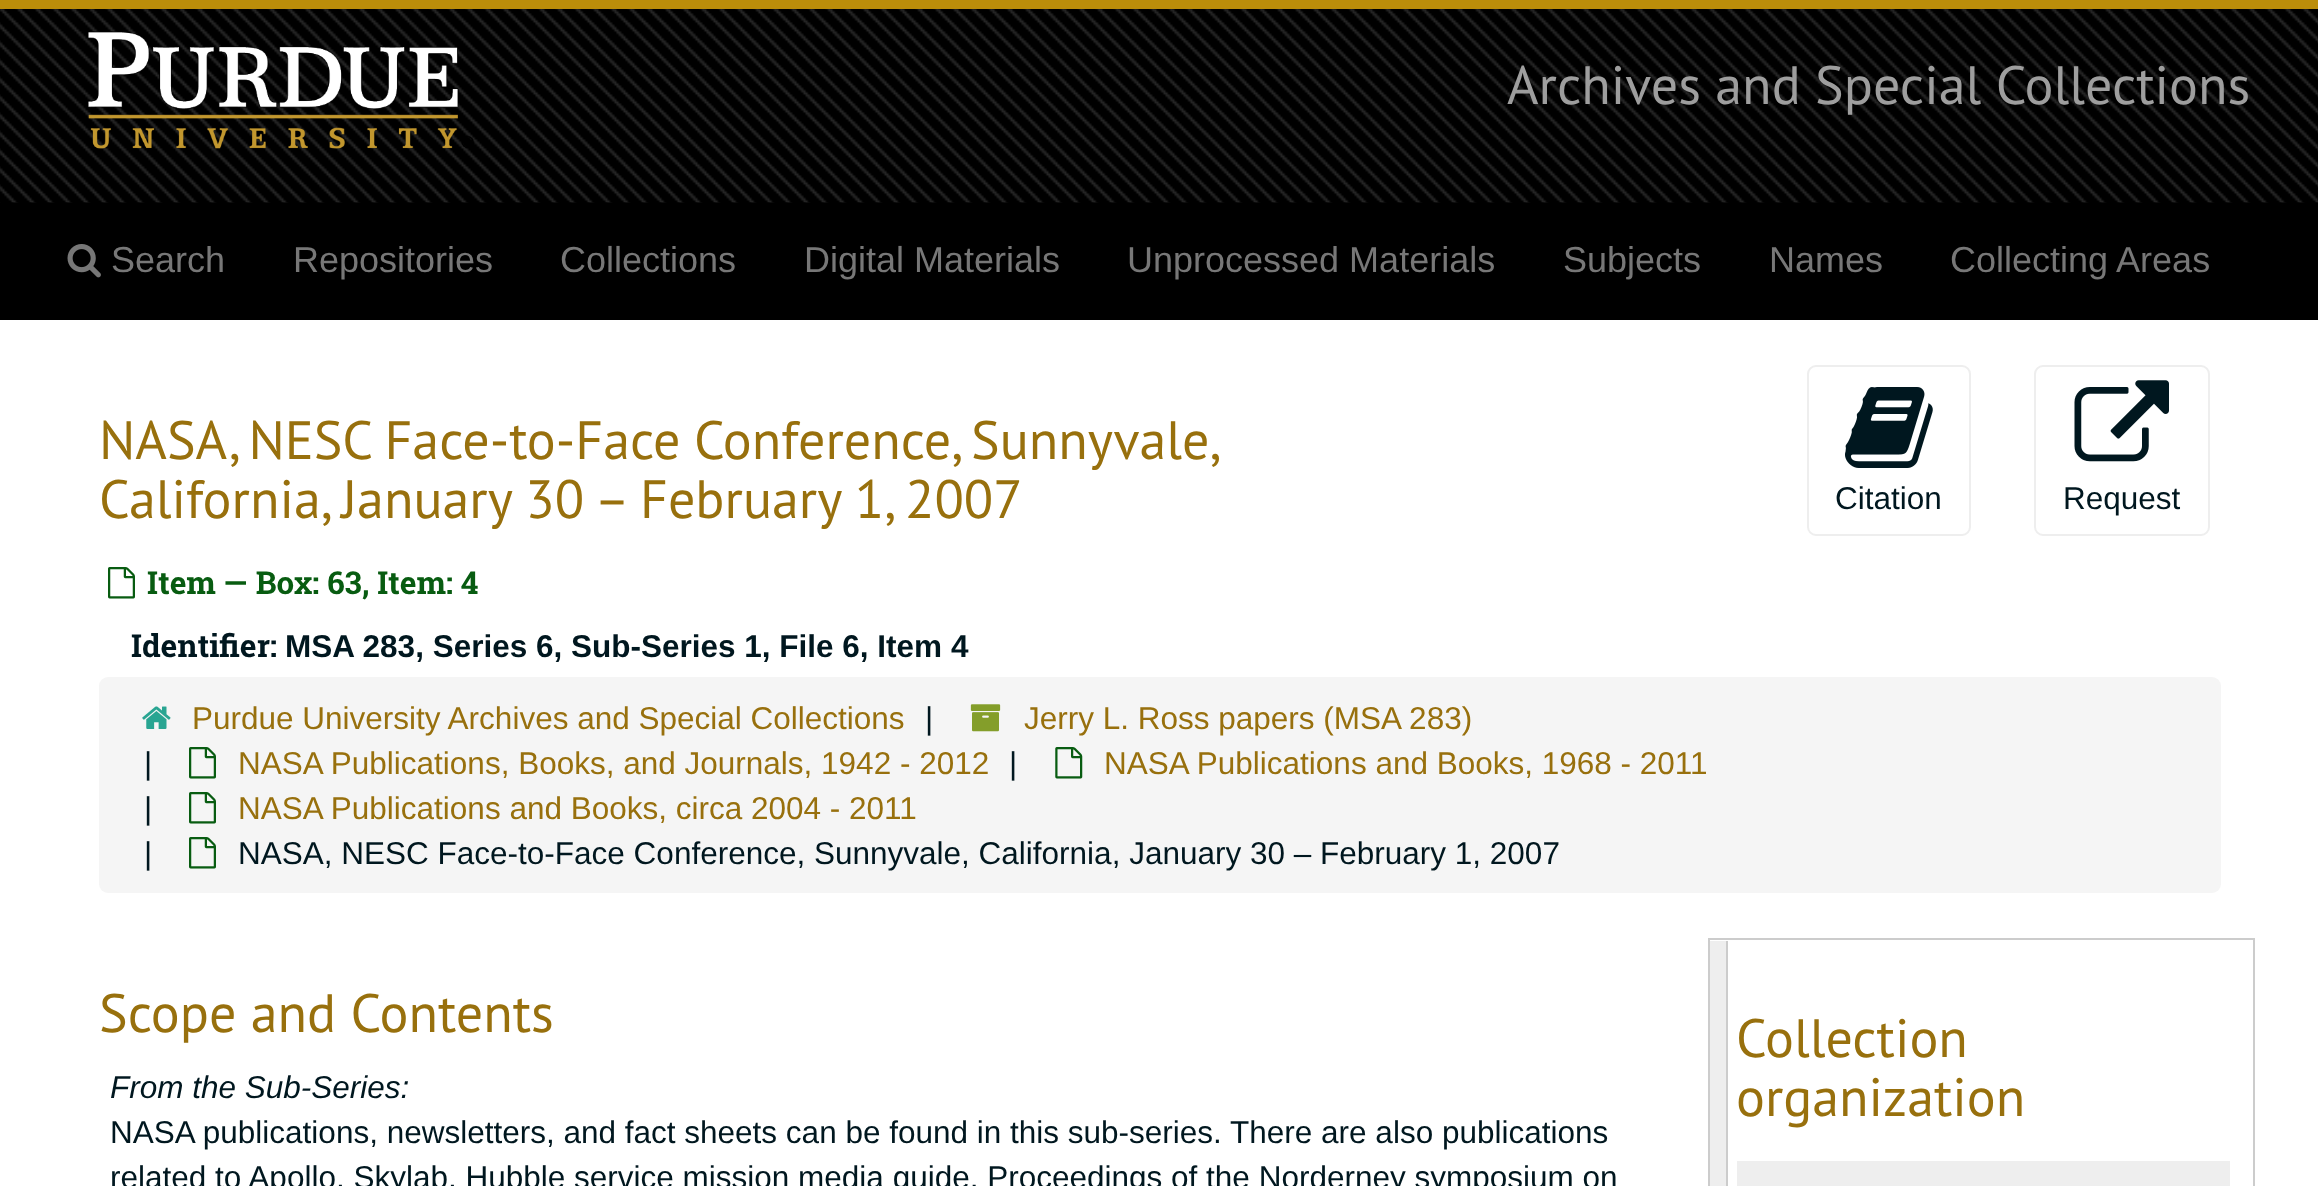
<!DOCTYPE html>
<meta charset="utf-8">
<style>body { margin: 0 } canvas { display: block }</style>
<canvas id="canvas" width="2318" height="1186"></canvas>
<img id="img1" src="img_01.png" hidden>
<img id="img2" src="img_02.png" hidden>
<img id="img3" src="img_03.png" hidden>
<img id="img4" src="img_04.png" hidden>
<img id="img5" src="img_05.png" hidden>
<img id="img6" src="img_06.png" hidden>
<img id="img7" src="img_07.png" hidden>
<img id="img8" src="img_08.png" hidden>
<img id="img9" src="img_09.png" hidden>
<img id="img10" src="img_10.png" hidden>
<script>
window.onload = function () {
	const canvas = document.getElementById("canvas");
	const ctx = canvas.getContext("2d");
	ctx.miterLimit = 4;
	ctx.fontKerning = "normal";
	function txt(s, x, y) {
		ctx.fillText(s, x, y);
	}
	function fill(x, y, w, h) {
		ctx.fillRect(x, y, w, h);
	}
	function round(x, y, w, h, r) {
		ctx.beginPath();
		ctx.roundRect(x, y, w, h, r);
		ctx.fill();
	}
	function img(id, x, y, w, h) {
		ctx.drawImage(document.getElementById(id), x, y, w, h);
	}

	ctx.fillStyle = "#FFFFFF";
	fill(0, 0, 2318, 1186);
	ctx.fillStyle = "#000000";
	fill(0, 202, 2318, 118);
	img("img1", 0, 9, 2318, 194);
	ctx.fillStyle = "#BB8D0A";
	fill(0, 0, 2318, 9);
	img("img2", 88, 31, 386, 118);
	img("img3", 67, 244, 34, 34);
	img("img4", 108, 567, 27, 32);
	ctx.beginPath();
	ctx.roundRect(1808, 366, 162, 169, 8);
	ctx.strokeStyle = "#EEEEEE";
	ctx.lineWidth = 2;
	ctx.stroke();
	img("img5", 1845, 387, 88, 81);
	ctx.beginPath();
	ctx.roundRect(2035, 366, 174, 169, 8);
	ctx.stroke();
	img("img6", 2074, 380, 95, 82);
	ctx.fillStyle = "#F5F5F5";
	round(99, 677, 2122, 216, 9);
	img("img7", 142, 706, 29, 23);
	img("img8", 970, 704, 31, 28);
	img("img9", 189, 747, 27, 32);
	img("img10", 1055, 747, 28, 32);
	img("img9", 189, 792, 27, 32);
	img("img9", 189, 837, 27, 32);
	ctx.strokeStyle = "#CCCCCC";
	ctx.strokeRect(1709, 939, 545, 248);
	ctx.fillStyle = "#EEEEEE";
	fill(1710, 941, 16, 245);
	ctx.fillStyle = "#CCCCCC";
	fill(1726, 941, 2, 245);
	ctx.fillStyle = "#EEEEEE";
	fill(1737, 1161, 493, 25);
	ctx.font = "54px PT Sans";
	ctx.fillStyle = "#9E9E9E";
	txt("Archives and Special Collections", 1507, 104);
	ctx.font = "36px Liberation Sans";
	ctx.fillStyle = "#777777";
	txt("Search", 111, 272);
	txt("Repositories", 293, 272);
	txt("Collections", 560, 272);
	txt("Digital Materials", 804, 272);
	txt("Unprocessed Materials", 1127, 272);
	txt("Subjects", 1563, 272);
	txt("Names", 1769, 272);
	txt("Collecting Areas", 1950, 272);
	ctx.wordSpacing = "-1px";
	ctx.font = "54px PT Sans";
	ctx.fillStyle = "#98700D";
	txt("NASA, NESC Face-to-Face Conference, Sunnyvale,", 99, 459);
	ctx.wordSpacing = "0px";
	txt("California, January 30 – February 1, 2007", 99, 518);
	ctx.font = "bold 31.5px Roboto Slab";
	ctx.fillStyle = "#085C11";
	txt("Item — Box: 63, Item: 4", 147, 594);
	ctx.fillStyle = "#00171F";
	txt("Identifier:", 131, 657);
	ctx.font = "bold 31.5px Liberation Sans";
	txt("MSA 283, Series 6, Sub-Series 1, File 6, Item 4", 285, 657);
	ctx.font = "31.5px Liberation Sans";
	txt("Citation", 1835, 509);
	txt("Request", 2063, 509);
	ctx.fillStyle = "#98700D";
	txt("Purdue University Archives and Special Collections", 192, 729);
	ctx.fillStyle = "#00171F";
	txt("|", 925, 729);
	ctx.fillStyle = "#98700D";
	txt("Jerry L. Ross papers (MSA 283)", 1024, 729);
	ctx.fillStyle = "#00171F";
	txt("|", 144, 774);
	ctx.fillStyle = "#98700D";
	txt("NASA Publications, Books, and Journals, 1942 - 2012", 238, 774);
	ctx.fillStyle = "#00171F";
	txt("|", 1009, 774);
	ctx.fillStyle = "#98700D";
	txt("NASA Publications and Books, 1968 - 2011", 1104, 774);
	ctx.fillStyle = "#00171F";
	txt("|", 144, 819);
	ctx.fillStyle = "#98700D";
	txt("NASA Publications and Books, circa 2004 - 2011", 238, 819);
	ctx.fillStyle = "#00171F";
	txt("|", 144, 864);
	txt("NASA, NESC Face-to-Face Conference, Sunnyvale, California, January 30 – February 1, 2007", 238, 864);
	ctx.font = "54px PT Sans";
	ctx.fillStyle = "#98700D";
	txt("Scope and Contents", 99, 1032);
	ctx.font = "italic 31.5px Liberation Sans";
	ctx.fillStyle = "#00171F";
	txt("From the Sub-Series:", 110, 1098);
	ctx.font = "31.5px Liberation Sans";
	txt("NASA publications, newsletters, and fact sheets can be found in this sub-series. There are also publications", 110, 1143);
	txt("related to Apollo, Skylab, Hubble service mission media guide, Proceedings of the Norderney symposium on", 110, 1188);
	ctx.font = "54px PT Sans";
	ctx.fillStyle = "#98700D";
	txt("Collection", 1736, 1057);
	txt("organization", 1736, 1116);
};
</script>
